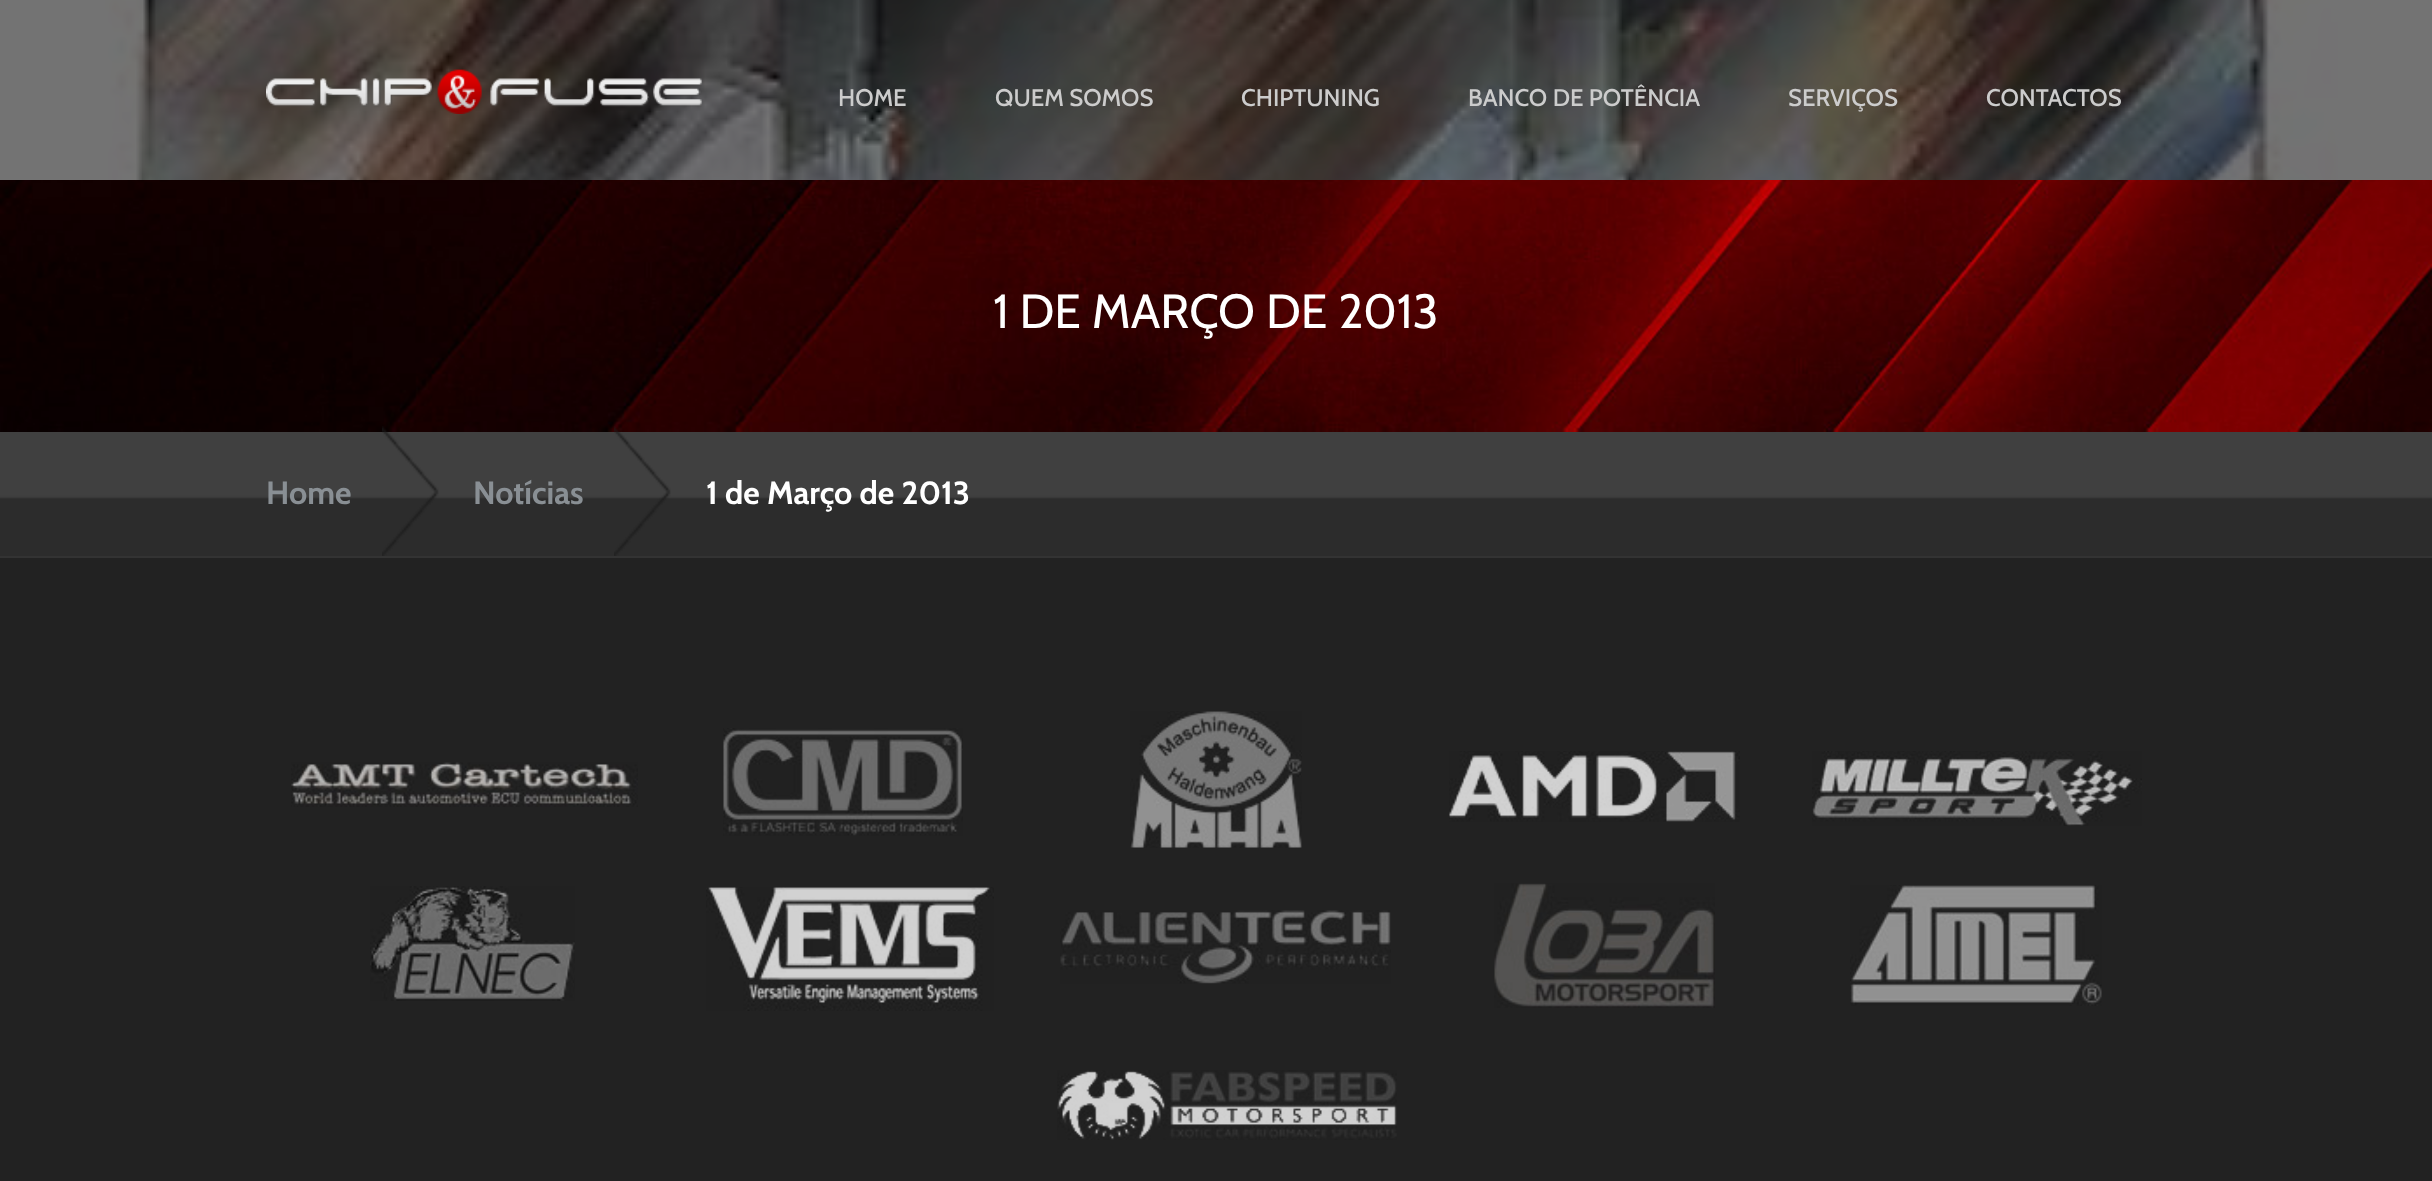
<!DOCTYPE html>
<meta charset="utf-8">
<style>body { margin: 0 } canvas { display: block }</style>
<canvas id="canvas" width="2432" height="1181"></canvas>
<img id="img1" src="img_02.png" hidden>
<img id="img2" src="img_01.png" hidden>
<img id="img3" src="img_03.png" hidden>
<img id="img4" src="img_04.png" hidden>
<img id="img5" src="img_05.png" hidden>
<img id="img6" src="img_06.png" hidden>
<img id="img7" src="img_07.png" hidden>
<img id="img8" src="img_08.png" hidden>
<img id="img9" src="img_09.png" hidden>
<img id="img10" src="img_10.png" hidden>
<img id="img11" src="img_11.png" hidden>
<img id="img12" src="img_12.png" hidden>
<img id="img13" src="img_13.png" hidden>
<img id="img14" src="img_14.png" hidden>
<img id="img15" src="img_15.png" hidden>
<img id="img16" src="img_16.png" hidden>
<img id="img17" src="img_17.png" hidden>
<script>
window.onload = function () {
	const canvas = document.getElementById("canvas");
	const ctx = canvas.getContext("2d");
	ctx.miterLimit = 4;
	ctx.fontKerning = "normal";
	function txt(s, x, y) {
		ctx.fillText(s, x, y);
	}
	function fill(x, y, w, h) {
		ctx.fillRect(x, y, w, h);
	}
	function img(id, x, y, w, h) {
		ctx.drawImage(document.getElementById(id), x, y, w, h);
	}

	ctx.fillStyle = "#FFFFFF";
	fill(0, 0, 2432, 1181);
	img("img1", 0, 0, 2432, 180);
	ctx.fillStyle = "rgba(0, 0, 0, 0.55)";
	fill(0, 0, 2432, 180);
	img("img2", 266, 69, 436, 45);
	img("img3", 0, 180, 2432, 252);
	img("img4", 0, 432, 2432, 124);
	img("img5", 382, 426, 57, 130);
	img("img6", 614, 426, 57, 130);
	ctx.fillStyle = "#222222";
	fill(0, 558, 2432, 623);
	ctx.fillStyle = "#333333";
	fill(0, 556, 2432, 2);
	img("img7", 291, 762, 347, 45);
	img("img8", 723, 728, 240, 108);
	img("img9", 1130, 711, 172, 137);
	img("img10", 1449, 751, 291, 71);
	img("img11", 1812, 751, 330, 75);
	img("img12", 370, 886, 205, 115);
	img("img13", 706, 887, 288, 124);
	img("img14", 1060, 910, 331, 74);
	img("img15", 1494, 883, 221, 125);
	img("img16", 1850, 885, 252, 121);
	img("img17", 1057, 1070, 340, 70);
	ctx.font = "500 24px Cabin";
	ctx.fillStyle = "#CCCCCC";
	txt("HOME", 838, 106);
	txt("QUEM SOMOS", 995, 106);
	txt("CHIPTUNING", 1241, 106);
	txt("BANCO DE POTÊNCIA", 1468, 106);
	txt("SERVIÇOS", 1788, 106);
	txt("CONTACTOS", 1986, 106);
	ctx.font = "48px Cabin";
	ctx.fillStyle = "#FFFFFF";
	txt("1 DE MARÇO DE 2013", 993, 328);
	ctx.font = "bold 32px Cabin";
	ctx.fillStyle = "#898F94";
	txt("Home", 266, 504);
	txt("Notícias", 473, 504);
	ctx.fillStyle = "#FFFFFF";
	txt("1 de Março de 2013", 706, 504);
};
</script>
